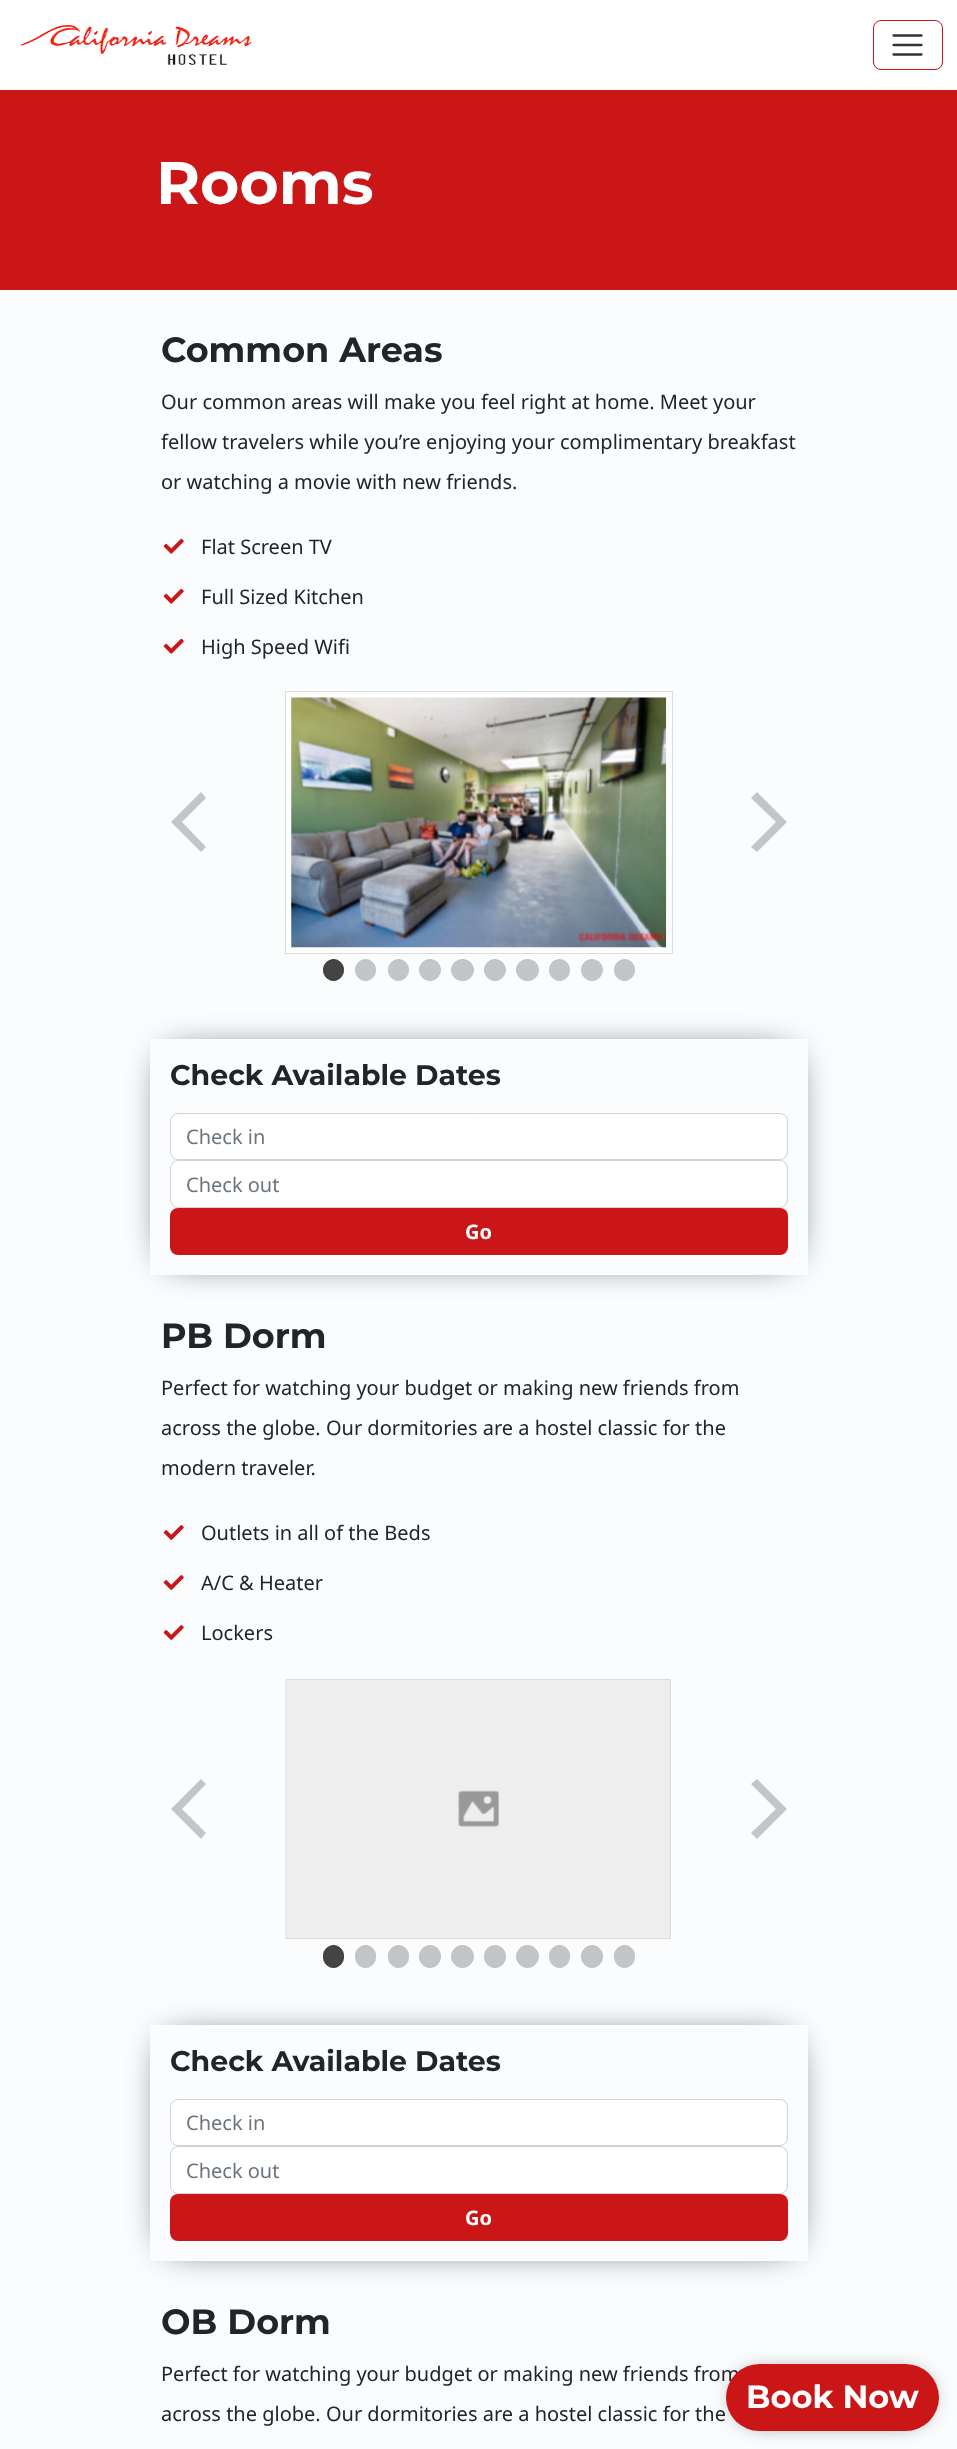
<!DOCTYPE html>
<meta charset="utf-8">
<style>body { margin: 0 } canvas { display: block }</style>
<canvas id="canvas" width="957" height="2449"></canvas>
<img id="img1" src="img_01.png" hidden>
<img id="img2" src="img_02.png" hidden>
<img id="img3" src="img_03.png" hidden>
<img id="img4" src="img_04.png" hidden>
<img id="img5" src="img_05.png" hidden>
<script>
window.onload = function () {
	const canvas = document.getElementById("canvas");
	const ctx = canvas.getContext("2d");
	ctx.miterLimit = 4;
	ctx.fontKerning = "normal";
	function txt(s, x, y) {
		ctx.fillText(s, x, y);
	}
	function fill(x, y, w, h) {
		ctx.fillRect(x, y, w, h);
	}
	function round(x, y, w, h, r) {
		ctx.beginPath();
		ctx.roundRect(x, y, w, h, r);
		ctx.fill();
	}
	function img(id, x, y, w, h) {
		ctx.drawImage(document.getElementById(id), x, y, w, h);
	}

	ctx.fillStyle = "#FAFCFE";
	fill(0, 0, 957, 2449);
	ctx.fillStyle = "#FFFFFF";
	fill(0, 0, 957, 88);
	img("img1", 20, 25, 232, 40);
	ctx.beginPath();
	ctx.roundRect(873.5, 20.5, 69, 49, 7.5);
	ctx.strokeStyle = "#CA1617";
	ctx.stroke();
	ctx.beginPath();
	ctx.moveTo(893.5, 35.5);
	ctx.lineTo(921.5, 35.5);
	ctx.moveTo(893.5, 45);
	ctx.lineTo(921.5, 45);
	ctx.moveTo(893.5, 54.5);
	ctx.lineTo(921.5, 54.5);
	ctx.strokeStyle = "#333333";
	ctx.lineWidth = 2.3;
	ctx.lineCap = "round";
	ctx.stroke();
	ctx.fillStyle = "#CA1617";
	fill(0, 90, 957, 200);
	ctx.fillStyle = "#FEFAFA";
	fill(0, 88, 957, 2);
	img("img2", 163, 538, 21, 16);
	img("img2", 163, 588, 21, 16);
	img("img2", 163, 638, 21, 16);
	ctx.fillStyle = "#C3C5C6";
	ctx.beginPath();
	ctx.moveTo(201, 852);
	ctx.lineTo(206, 847);
	ctx.lineTo(182, 822);
	ctx.lineTo(206, 798);
	ctx.lineTo(201, 792);
	ctx.lineTo(171, 822);
	ctx.closePath();
	ctx.fill();
	ctx.strokeStyle = "#DDDDDD";
	ctx.lineWidth = 1;
	ctx.strokeRect(285.5, 691.5, 387, 262);
	ctx.fillStyle = "#FFFFFF";
	fill(286, 693, 385, 260);
	img("img3", 291, 697, 376, 251);
	ctx.fillStyle = "#C3C5C6";
	ctx.beginPath();
	ctx.moveTo(757, 792);
	ctx.lineTo(751, 798);
	ctx.lineTo(776, 822);
	ctx.lineTo(751, 847);
	ctx.lineTo(757, 852);
	ctx.lineTo(787, 822);
	ctx.closePath();
	ctx.fill();
	ctx.fillStyle = "#444444";
	ctx.beginPath();
	ctx.roundRect(323.5, 959.5, 20, 21, 10);
	ctx.fill();
	ctx.strokeStyle = "#333333";
	ctx.stroke();
	ctx.fillStyle = "#C3C5C6";
	ctx.beginPath();
	ctx.roundRect(355.5, 959.5, 20, 21, 10);
	ctx.fill();
	ctx.strokeStyle = "#BEC0C1";
	ctx.stroke();
	ctx.beginPath();
	ctx.roundRect(388.5, 959.5, 20, 21, 10);
	ctx.fill();
	ctx.stroke();
	ctx.beginPath();
	ctx.arc(430, 970, 10.5, 0, Math.PI * 2);
	ctx.fill();
	ctx.stroke();
	ctx.beginPath();
	ctx.roundRect(451.5, 959.5, 22, 21, 10.5);
	ctx.fill();
	ctx.stroke();
	ctx.beginPath();
	ctx.arc(495, 970, 10.5, 0, Math.PI * 2);
	ctx.fill();
	ctx.stroke();
	ctx.beginPath();
	ctx.roundRect(516.5, 959.5, 22, 21, 10.5);
	ctx.fill();
	ctx.stroke();
	ctx.beginPath();
	ctx.roundRect(549.5, 959.5, 20, 21, 10);
	ctx.fill();
	ctx.stroke();
	ctx.beginPath();
	ctx.arc(592, 970, 10.5, 0, Math.PI * 2);
	ctx.fill();
	ctx.stroke();
	ctx.beginPath();
	ctx.roundRect(614.5, 959.5, 20, 21, 10);
	ctx.fill();
	ctx.stroke();
	ctx.save();
	ctx.beginPath();
	ctx.moveTo(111, 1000);
	ctx.lineTo(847, 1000);
	ctx.lineTo(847, 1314);
	ctx.lineTo(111, 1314);
	ctx.closePath();
	ctx.moveTo(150, 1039);
	ctx.lineTo(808, 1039);
	ctx.lineTo(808, 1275);
	ctx.lineTo(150, 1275);
	ctx.closePath();
	ctx.clip("evenodd");
	ctx.fillStyle = "#000000";
	ctx.filter = "blur(19px)";
	ctx.beginPath();
	ctx.rect(169, 1058, 620, 198);
	ctx.fill();
	ctx.filter = "none";
	ctx.restore();
	ctx.fillStyle = "#FFFFFF";
	round(171, 1114, 615, 45, 6);
	ctx.beginPath();
	ctx.roundRect(170.5, 1113.5, 617, 46, 7.5);
	ctx.strokeStyle = "#CED4DA";
	ctx.stroke();
	round(171, 1161, 615, 45, 6);
	ctx.beginPath();
	ctx.roundRect(170.5, 1160.5, 617, 47, 7.5);
	ctx.stroke();
	ctx.fillStyle = "#CA1617";
	round(170, 1208, 618, 47, 8);
	img("img4", 163, 1525, 21, 15);
	img("img4", 163, 1575, 21, 15);
	img("img4", 163, 1625, 21, 15);
	ctx.fillStyle = "#C3C5C6";
	ctx.beginPath();
	ctx.moveTo(201, 1839);
	ctx.lineTo(206, 1833);
	ctx.lineTo(182, 1809);
	ctx.lineTo(206, 1784);
	ctx.lineTo(201, 1779);
	ctx.lineTo(171, 1809);
	ctx.closePath();
	ctx.fill();
	ctx.fillStyle = "#EEEEEE";
	ctx.beginPath();
	ctx.rect(286.5, 1679.5, 384, 259);
	ctx.fill();
	ctx.strokeStyle = "#DDDDDD";
	ctx.stroke();
	img("img5", 458, 1790, 41, 37);
	ctx.fillStyle = "#C3C5C6";
	ctx.beginPath();
	ctx.moveTo(757, 1779);
	ctx.lineTo(751, 1784);
	ctx.lineTo(776, 1809);
	ctx.lineTo(751, 1833);
	ctx.lineTo(757, 1839);
	ctx.lineTo(787, 1809);
	ctx.closePath();
	ctx.fill();
	ctx.fillStyle = "#444444";
	ctx.beginPath();
	ctx.roundRect(323.5, 1945.5, 20, 22, 10);
	ctx.fill();
	ctx.strokeStyle = "#333333";
	ctx.stroke();
	ctx.fillStyle = "#C3C5C6";
	ctx.beginPath();
	ctx.roundRect(355.5, 1945.5, 20, 22, 10);
	ctx.fill();
	ctx.strokeStyle = "#BEC0C1";
	ctx.stroke();
	ctx.beginPath();
	ctx.roundRect(388.5, 1945.5, 20, 22, 10);
	ctx.fill();
	ctx.stroke();
	ctx.beginPath();
	ctx.roundRect(419.5, 1945.5, 21, 22, 10.5);
	ctx.fill();
	ctx.stroke();
	ctx.beginPath();
	ctx.arc(462.5, 1956.5, 11, 0, Math.PI * 2);
	ctx.fill();
	ctx.stroke();
	ctx.beginPath();
	ctx.roundRect(484.5, 1945.5, 21, 22, 10.5);
	ctx.fill();
	ctx.stroke();
	ctx.beginPath();
	ctx.arc(527.5, 1956.5, 11, 0, Math.PI * 2);
	ctx.fill();
	ctx.stroke();
	ctx.beginPath();
	ctx.roundRect(549.5, 1945.5, 20, 22, 10);
	ctx.fill();
	ctx.stroke();
	ctx.beginPath();
	ctx.roundRect(581.5, 1945.5, 21, 22, 10.5);
	ctx.fill();
	ctx.stroke();
	ctx.beginPath();
	ctx.roundRect(614.5, 1945.5, 20, 22, 10);
	ctx.fill();
	ctx.stroke();
	ctx.save();
	ctx.beginPath();
	ctx.moveTo(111, 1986);
	ctx.lineTo(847, 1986);
	ctx.lineTo(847, 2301);
	ctx.lineTo(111, 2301);
	ctx.closePath();
	ctx.moveTo(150, 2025);
	ctx.lineTo(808, 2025);
	ctx.lineTo(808, 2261);
	ctx.lineTo(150, 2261);
	ctx.closePath();
	ctx.clip("evenodd");
	ctx.fillStyle = "#000000";
	ctx.filter = "blur(19px)";
	ctx.beginPath();
	ctx.rect(169, 2044, 620, 199);
	ctx.fill();
	ctx.filter = "none";
	ctx.restore();
	ctx.fillStyle = "#FFFFFF";
	round(171, 2100, 615, 45, 6);
	ctx.beginPath();
	ctx.roundRect(170.5, 2099.5, 617, 46, 7.5);
	ctx.strokeStyle = "#CED4DA";
	ctx.stroke();
	round(171, 2148, 615, 45, 6);
	ctx.beginPath();
	ctx.roundRect(170.5, 2146.5, 617, 47, 7.5);
	ctx.stroke();
	ctx.fillStyle = "#CA1617";
	round(170, 2194, 618, 47, 8);
	ctx.fillStyle = "#000000";
	ctx.filter = "blur(12.5px)";
	ctx.beginPath();
	ctx.roundRect(740, 2378, 185, 40, 20);
	ctx.fill();
	ctx.filter = "none";
	ctx.font = "bold 60px Montserrat";
	ctx.fillStyle = "#FFFFFF";
	txt("Rooms", 156, 204);
	ctx.font = "bold 35px Montserrat";
	ctx.fillStyle = "#212529";
	txt("Common Areas", 161, 362);
	ctx.font = "20px Noto Sans";
	txt("Our common areas will make you feel right at home. Meet your", 161, 409);
	txt("fellow travelers while you’re enjoying your complimentary breakfast", 161, 449);
	txt("or watching a movie with new friends.", 161, 489);
	txt("Flat Screen TV", 201, 554);
	txt("Full Sized Kitchen", 201, 604);
	txt("High Speed Wifi", 201, 654);
	ctx.font = "bold 28.4px Montserrat";
	txt("Check Available Dates", 170, 1085);
	ctx.font = "20px Noto Sans";
	ctx.fillStyle = "#6C757D";
	txt("Check in", 186, 1144);
	txt("Check out", 186, 1192);
	ctx.font = "bold 20px Noto Sans";
	ctx.fillStyle = "#FFFFFF";
	txt("Go", 465, 1239);
	ctx.font = "bold 35px Montserrat";
	ctx.fillStyle = "#212529";
	txt("PB Dorm", 161, 1348);
	ctx.font = "20px Noto Sans";
	txt("Perfect for watching your budget or making new friends from", 161, 1395);
	txt("across the globe. Our dormitories are a hostel classic for the", 161, 1435);
	txt("modern traveler.", 161, 1475);
	txt("Outlets in all of the Beds", 201, 1540);
	txt("A/C & Heater", 201, 1590);
	txt("Lockers", 201, 1640);
	ctx.font = "bold 28.4px Montserrat";
	txt("Check Available Dates", 170, 2071);
	ctx.font = "20px Noto Sans";
	ctx.fillStyle = "#6C757D";
	txt("Check in", 186, 2130);
	txt("Check out", 186, 2178);
	ctx.font = "bold 20px Noto Sans";
	ctx.fillStyle = "#FFFFFF";
	txt("Go", 465, 2225);
	ctx.font = "bold 35px Montserrat";
	ctx.fillStyle = "#212529";
	txt("OB Dorm", 161, 2334);
	ctx.font = "20px Noto Sans";
	txt("Perfect for watching your budget or making new friends from", 161, 2381);
	txt("across the globe. Our dormitories are a hostel classic for the", 161, 2421);
	ctx.fillStyle = "#CA1617";
	round(726, 2364, 213, 67, 33.5);
	ctx.font = "bold 32px Montserrat";
	ctx.fillStyle = "#FFFFFF";
	txt("Book Now", 746, 2408);
};
</script>
